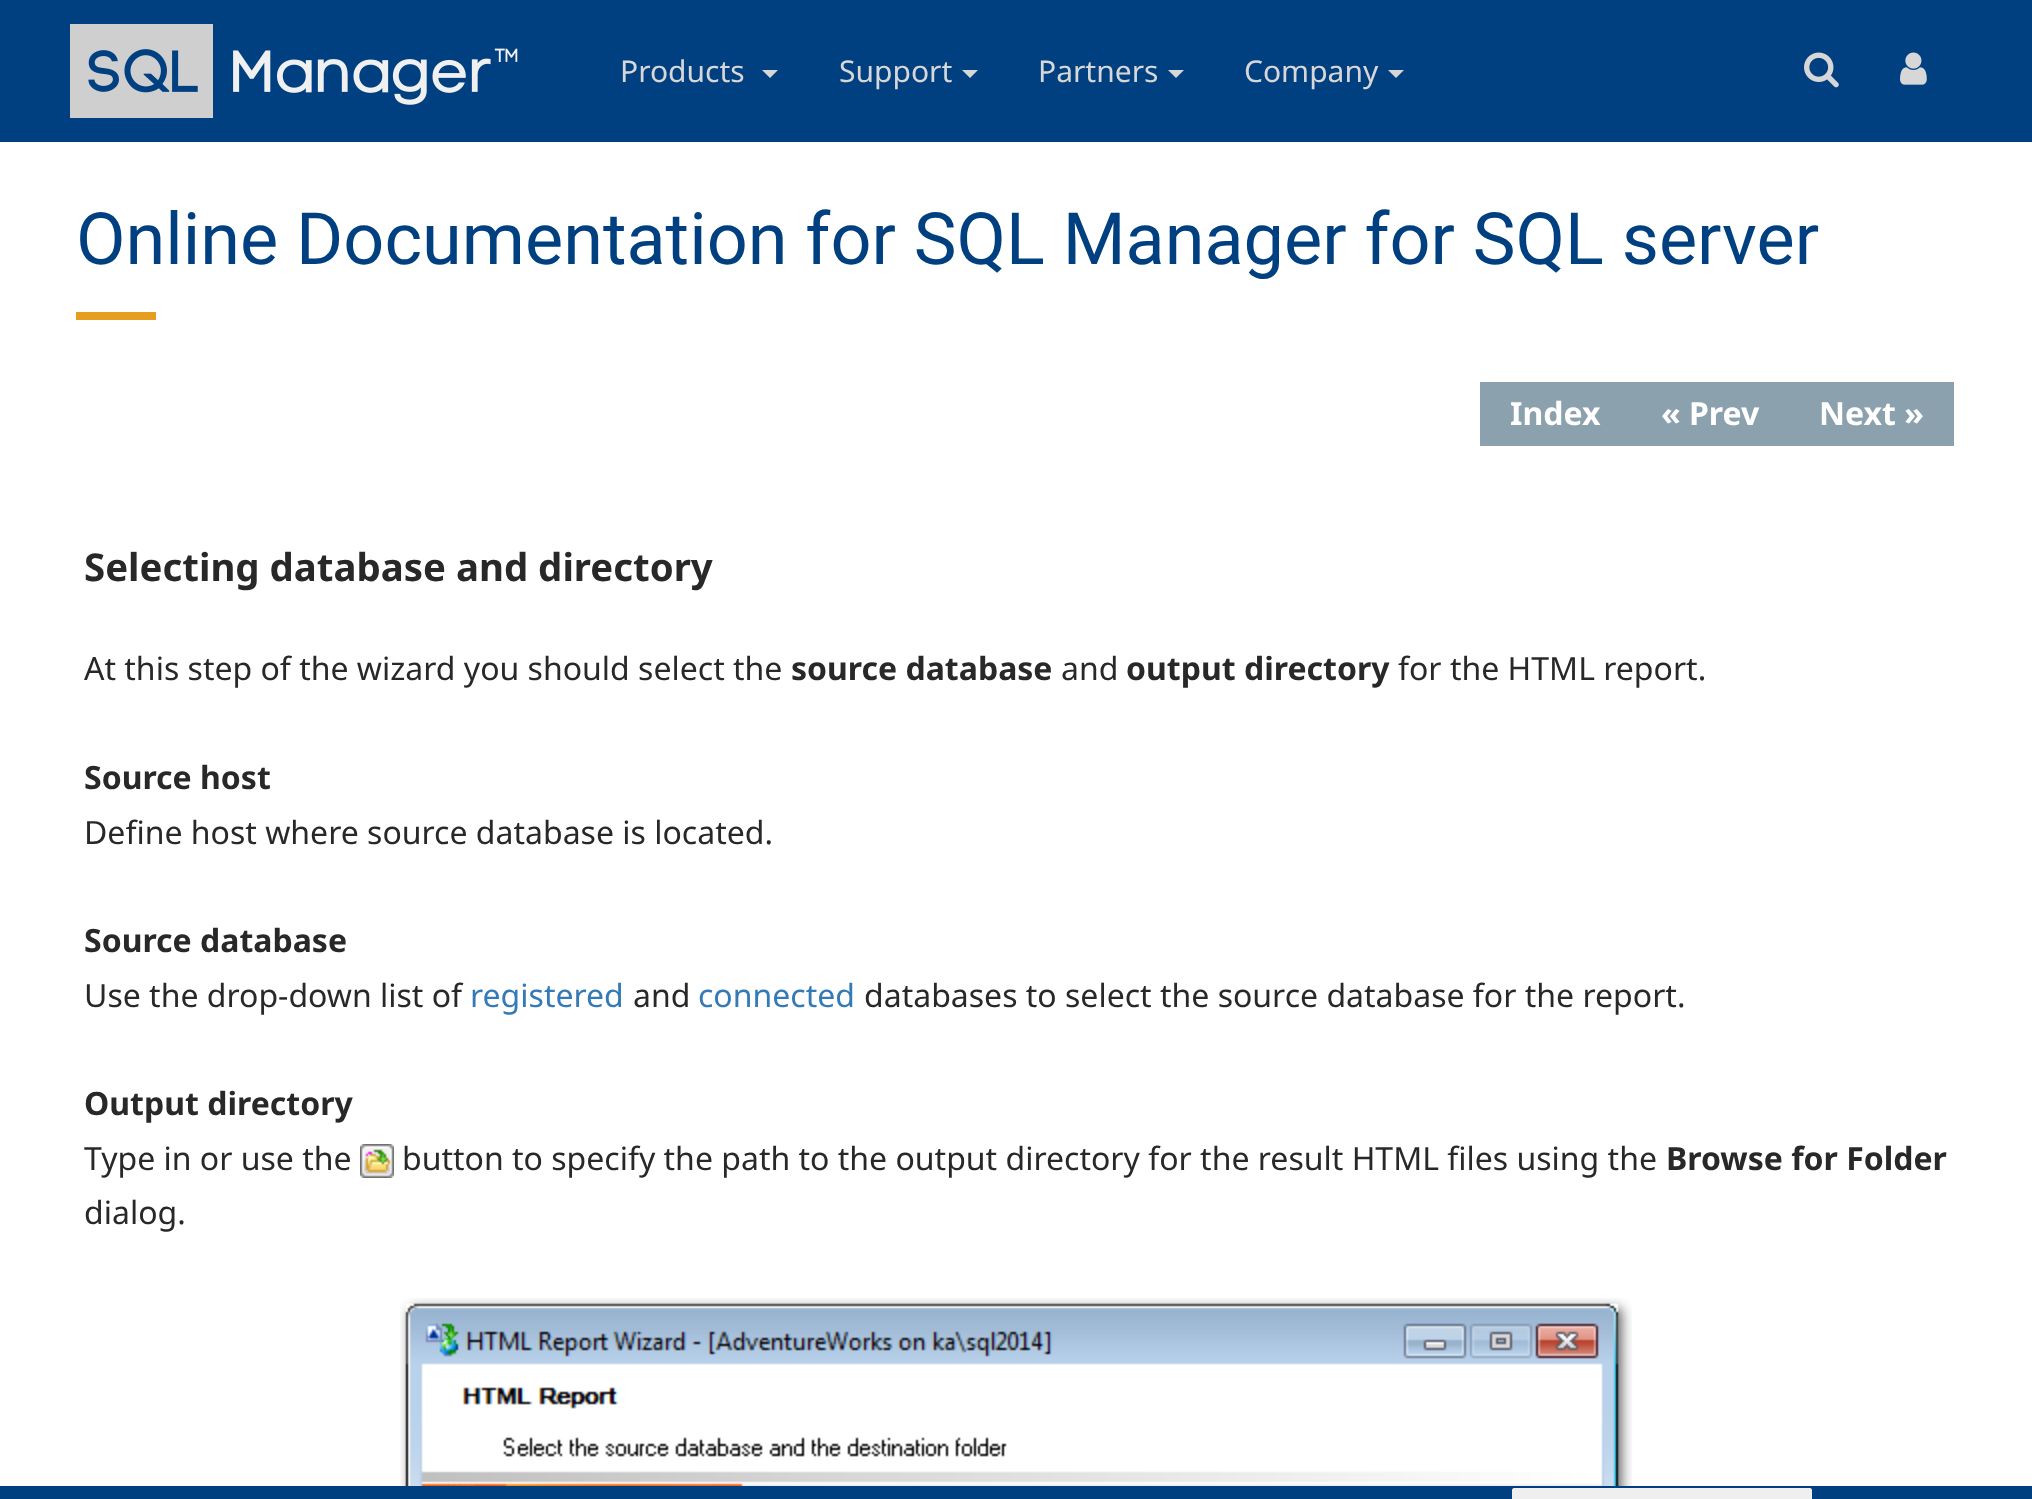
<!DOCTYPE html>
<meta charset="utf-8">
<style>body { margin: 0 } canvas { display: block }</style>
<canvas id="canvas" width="2032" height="1499"></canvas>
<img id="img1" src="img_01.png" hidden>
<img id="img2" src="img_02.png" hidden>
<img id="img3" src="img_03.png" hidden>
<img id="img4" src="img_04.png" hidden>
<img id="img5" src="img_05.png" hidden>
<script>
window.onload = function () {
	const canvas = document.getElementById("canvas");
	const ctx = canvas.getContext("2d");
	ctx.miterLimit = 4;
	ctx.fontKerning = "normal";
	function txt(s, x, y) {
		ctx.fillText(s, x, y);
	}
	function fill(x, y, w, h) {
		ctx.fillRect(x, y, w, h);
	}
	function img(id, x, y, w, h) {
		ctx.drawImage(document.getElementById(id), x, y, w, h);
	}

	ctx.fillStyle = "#FFFFFF";
	fill(0, 0, 2032, 1499);
	ctx.fillStyle = "#004080";
	fill(0, 0, 2032, 142);
	img("img1", 70, 24, 448, 94);
	ctx.fillStyle = "#D7D7D7";
	ctx.beginPath();
	ctx.moveTo(762, 70);
	ctx.lineTo(778, 70);
	ctx.lineTo(770, 78);
	ctx.closePath();
	ctx.fill();
	ctx.beginPath();
	ctx.moveTo(962, 70);
	ctx.lineTo(978, 70);
	ctx.lineTo(970, 78);
	ctx.closePath();
	ctx.fill();
	ctx.beginPath();
	ctx.moveTo(1168, 70);
	ctx.lineTo(1184, 70);
	ctx.lineTo(1176, 78);
	ctx.closePath();
	ctx.fill();
	ctx.beginPath();
	ctx.moveTo(1388, 70);
	ctx.lineTo(1404, 70);
	ctx.lineTo(1396, 78);
	ctx.closePath();
	ctx.fill();
	img("img2", 1804, 52, 35, 36);
	img("img3", 1900, 52, 27, 33);
	ctx.fillStyle = "#E69E21";
	fill(76, 312, 80, 8);
	ctx.fillStyle = "#8CA1AE";
	fill(1480, 382, 474, 64);
	img("img4", 360, 1144, 34, 34);
	img("img5", 400, 1298, 1232, 188);
	ctx.fillStyle = "#004080";
	fill(0, 1486, 2032, 13);
	ctx.fillStyle = "#EFEFEF";
	ctx.beginPath();
	ctx.moveTo(1514, 1488);
	ctx.lineTo(1810, 1488);
	ctx.bezierCurveTo(1811, 1488, 1812, 1489, 1812, 1490);
	ctx.lineTo(1812, 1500);
	ctx.lineTo(1512, 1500);
	ctx.lineTo(1512, 1490);
	ctx.bezierCurveTo(1512, 1489, 1513, 1488, 1514, 1488);
	ctx.closePath();
	ctx.fill();
	ctx.font = "30px Noto Sans";
	ctx.fillStyle = "#D7D7D7";
	txt("Products", 620, 82);
	txt("Support", 839, 82);
	txt("Partners", 1038, 82);
	txt("Company", 1244, 82);
	ctx.font = "72px Roboto";
	ctx.fillStyle = "#004080";
	txt("Online Documentation for SQL Manager for SQL server", 76, 264);
	ctx.font = "bold 32px Noto Sans";
	ctx.fillStyle = "#FFFFFF";
	txt("Index", 1510, 425);
	txt("« Prev", 1661, 425);
	txt("Next »", 1819, 425);
	ctx.font = "bold 38.4px Noto Sans";
	ctx.fillStyle = "#282828";
	txt("Selecting database and directory", 84, 581);
	ctx.font = "32px Noto Sans";
	txt("At this step of the wizard you should select the", 84, 680);
	ctx.font = "bold 32px Noto Sans";
	txt("source database", 791, 680);
	ctx.font = "32px Noto Sans";
	txt("and", 1061, 680);
	ctx.font = "bold 32px Noto Sans";
	txt("output directory", 1126, 680);
	ctx.font = "32px Noto Sans";
	txt("for the HTML report.", 1398, 680);
	ctx.font = "bold 32px Noto Sans";
	txt("Source host", 84, 789);
	ctx.font = "32px Noto Sans";
	txt("Define host where source database is located.", 84, 844);
	ctx.font = "bold 32px Noto Sans";
	txt("Source database", 84, 952);
	ctx.font = "32px Noto Sans";
	txt("Use the drop-down list of", 84, 1007);
	ctx.fillStyle = "#337AB7";
	txt("registered", 470, 1007);
	ctx.fillStyle = "#282828";
	txt("and", 633, 1007);
	ctx.fillStyle = "#337AB7";
	txt("connected", 698, 1007);
	ctx.fillStyle = "#282828";
	txt("databases to select the source database for the report.", 864, 1007);
	ctx.font = "bold 32px Noto Sans";
	txt("Output directory", 84, 1115);
	ctx.font = "32px Noto Sans";
	txt("Type in or use the", 84, 1170);
	txt("button to specify the path to the output directory for the result HTML files using the", 402, 1170);
	ctx.font = "bold 32px Noto Sans";
	txt("Browse for Folder", 1666, 1170);
	ctx.font = "32px Noto Sans";
	txt("dialog.", 84, 1224);
};
</script>
